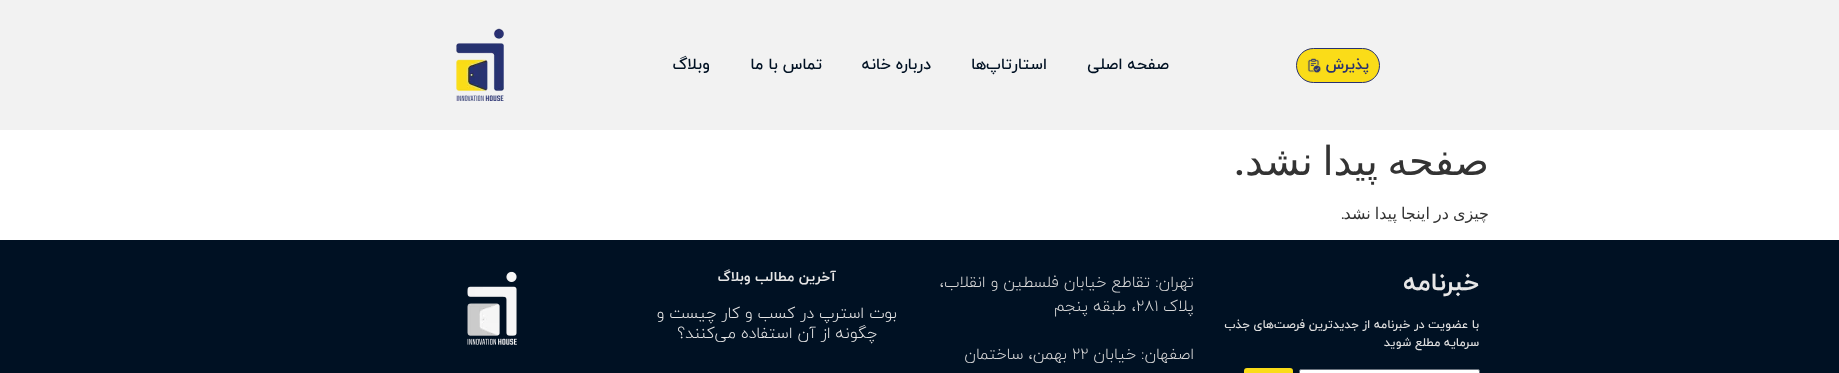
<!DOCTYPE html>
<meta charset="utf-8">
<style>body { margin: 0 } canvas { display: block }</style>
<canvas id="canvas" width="1839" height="373"></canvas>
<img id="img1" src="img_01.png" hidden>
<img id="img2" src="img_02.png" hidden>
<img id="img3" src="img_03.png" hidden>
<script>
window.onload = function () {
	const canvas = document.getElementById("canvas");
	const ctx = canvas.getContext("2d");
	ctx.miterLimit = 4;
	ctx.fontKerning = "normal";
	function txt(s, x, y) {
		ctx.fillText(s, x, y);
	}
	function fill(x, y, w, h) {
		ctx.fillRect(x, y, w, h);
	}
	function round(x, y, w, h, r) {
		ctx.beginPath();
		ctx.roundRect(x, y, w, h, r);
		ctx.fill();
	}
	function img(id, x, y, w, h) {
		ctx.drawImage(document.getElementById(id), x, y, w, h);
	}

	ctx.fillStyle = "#FFFFFF";
	fill(0, 0, 1839, 373);
	ctx.fillStyle = "#F2F2F2";
	fill(0, 0, 1839, 130);
	ctx.fillStyle = "#FADC18";
	ctx.beginPath();
	ctx.roundRect(1296.5, 48.5, 83, 34, 17);
	ctx.fill();
	ctx.strokeStyle = "#293270";
	ctx.stroke();
	img("img1", 1307, 58, 14, 15);
	img("img2", 456, 28, 48, 73);
	ctx.fillStyle = "#001123";
	fill(0, 240, 1839, 133);
	ctx.fillStyle = "#FFFFFF";
	ctx.beginPath();
	ctx.roundRect(1299.5, 369.5, 180, 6, 1.5);
	ctx.fill();
	ctx.strokeStyle = "#69727D";
	ctx.stroke();
	ctx.fillStyle = "#FADC18";
	round(1244, 368, 49, 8, 3);
	img("img3", 467, 271, 50, 74);
	ctx.direction = "rtl";
	ctx.font = "bold 15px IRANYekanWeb";
	ctx.fillStyle = "#293270";
	txt("پذیرش", 1369, 69);
	ctx.font = "500 16px IRANYekanWeb";
	ctx.fillStyle = "#001123";
	txt("صفحه اصلی", 1169, 69);
	txt("استارتاپ‌ها", 1047, 69);
	txt("درباره خانه", 931, 69);
	txt("تماس با ما", 822, 69);
	txt("وبلاگ", 710, 69);
	ctx.wordSpacing = "-3px";
	ctx.font = "40px DejaVu Sans";
	ctx.fillStyle = "#333333";
	txt("صفحه پیدا نشد", 1489, 175);
	ctx.wordSpacing = "0px";
	ctx.font = "500 40px Roboto";
	txt(".", 1245, 175);
	ctx.wordSpacing = "-1px";
	ctx.font = "16px DejaVu Sans";
	txt("چیزی در اینجا پیدا نشد", 1489, 219);
	ctx.wordSpacing = "0px";
	ctx.font = "16px Roboto";
	txt(".", 1345, 219);
	ctx.font = "bold 25px IRANYekanWeb";
	ctx.fillStyle = "#E7E7E7";
	txt("خبرنامه", 1479, 290);
	ctx.font = "500 12px IRANYekanWeb";
	ctx.fillStyle = "#DFDFDF";
	txt("با عضویت در خبرنامه از جدیدترین فرصت‌های جذب", 1479, 328);
	txt("سرمایه مطلع شوید", 1479, 346);
	ctx.font = "300 16px IRANYekanWeb";
	ctx.fillStyle = "#D8D8D8";
	txt("تهران: تقاطع خیابان فلسطین و انقلاب،", 1194, 287);
	txt("پلاک", 1194, 311);
	ctx.direction = "ltr";
	txt("۲۸۱", 1136, 311);
	ctx.direction = "rtl";
	txt("، طبقه پنجم", 1136, 311);
	txt("اصفهان: خیابان", 1194, 359);
	ctx.direction = "ltr";
	txt("۲۲", 1072, 359);
	ctx.direction = "rtl";
	txt("بهمن، ساختمان", 1067, 359);
	ctx.font = "bold 14px IRANYekanWeb";
	ctx.fillStyle = "#E7E7E7";
	txt("آخرین مطالب وبلاگ", 836, 281);
	ctx.font = "300 16px IRANYekanWeb";
	txt("بوت استرپ در کسب و کار چیست و", 897, 318);
	txt("چگونه از آن استفاده می‌کنند؟", 877, 338);
};
</script>
